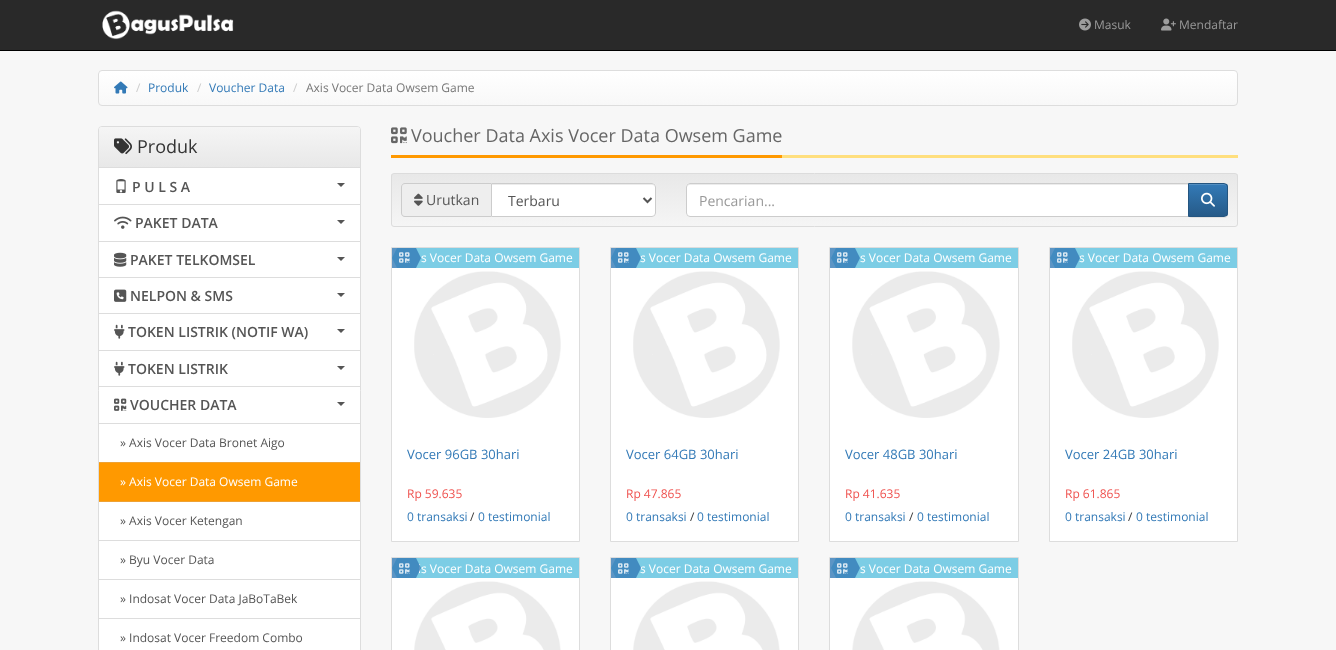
<!DOCTYPE html>
<meta charset="utf-8">
<style>body { margin: 0 } canvas { display: block }</style>
<canvas id="canvas" width="1336" height="650"></canvas>
<img id="img1" src="img_01.png" hidden>
<img id="img2" src="img_02.png" hidden>
<img id="img3" src="img_03.png" hidden>
<img id="img4" src="img_04.png" hidden>
<img id="img5" src="img_05.png" hidden>
<img id="img6" src="img_06.png" hidden>
<img id="img7" src="img_07.png" hidden>
<img id="img8" src="img_08.png" hidden>
<img id="img9" src="img_09.png" hidden>
<img id="img10" src="img_10.png" hidden>
<img id="img11" src="img_11.png" hidden>
<img id="img12" src="img_12.png" hidden>
<img id="img13" src="img_13.png" hidden>
<img id="img14" src="img_14.png" hidden>
<img id="img15" src="img_15.png" hidden>
<img id="img16" src="img_16.png" hidden>
<img id="img17" src="img_17.png" hidden>
<img id="img18" src="img_18.png" hidden>
<img id="img19" src="img_19.png" hidden>
<img id="img20" src="img_20.png" hidden>
<img id="img21" src="img_21.png" hidden>
<img id="img22" src="img_22.png" hidden>
<script>
window.onload = function () {
	const canvas = document.getElementById("canvas");
	const ctx = canvas.getContext("2d");
	ctx.miterLimit = 4;
	ctx.fontKerning = "normal";
	function txt(s, x, y) {
		ctx.fillText(s, x, y);
	}
	function fill(x, y, w, h) {
		ctx.fillRect(x, y, w, h);
	}
	function img(id, x, y, w, h) {
		ctx.drawImage(document.getElementById(id), x, y, w, h);
	}
	let gradient;

	ctx.fillStyle = "#F7F7F7";
	fill(0, 0, 1336, 650);
	ctx.fillStyle = "#292929";
	fill(0, 0, 1336, 50);
	ctx.fillStyle = "#000000";
	fill(0, 50, 1336, 1);
	img("img1", 102, 10, 132, 30);
	img("img2", 1079, 18, 12, 13);
	img("img3", 1161, 18, 15, 13);
	ctx.save();
	ctx.beginPath();
	ctx.roundRect(98, 70, 1140, 36, 4);
	ctx.clip();
	gradient = ctx.createLinearGradient(668, 71, 668, 105);
	gradient.addColorStop(0, "#FFFFFF");
	gradient.addColorStop(1, "#F8F8F8");
	ctx.fillStyle = gradient;
	fill(98, 71, 1140, 34);
	ctx.restore();
	ctx.beginPath();
	ctx.roundRect(98.5, 70.5, 1139, 35, 3.5);
	ctx.strokeStyle = "#DDDDDD";
	ctx.stroke();
	img("img4", 114, 81, 14, 13);
	ctx.fillStyle = "#FFFFFF";
	ctx.beginPath();
	ctx.roundRect(98.5, 126.5, 262, 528, 3.5);
	ctx.fill();
	ctx.stroke();
	gradient = ctx.createLinearGradient(230, 127, 230, 167);
	gradient.addColorStop(0, "#F5F5F5");
	gradient.addColorStop(1, "#E8E8E8");
	ctx.fillStyle = gradient;
	ctx.beginPath();
	ctx.roundRect(99, 127, 261, 40, [3, 3, 0, 0]);
	ctx.fill();
	ctx.fillStyle = "#DDDDDD";
	fill(99, 167, 261, 1);
	img("img5", 114, 138, 18, 17);
	fill(99, 204, 261, 1);
	img("img6", 116, 179, 10, 14);
	ctx.fillStyle = "#555555";
	ctx.beginPath();
	ctx.moveTo(337, 183);
	ctx.lineTo(345, 183);
	ctx.lineTo(341, 187);
	ctx.closePath();
	ctx.fill();
	ctx.fillStyle = "#DDDDDD";
	fill(99, 241, 261, 1);
	img("img7", 114, 216, 18, 13);
	ctx.fillStyle = "#555555";
	ctx.beginPath();
	ctx.moveTo(337, 220);
	ctx.lineTo(345, 220);
	ctx.lineTo(341, 224);
	ctx.closePath();
	ctx.fill();
	ctx.fillStyle = "#DDDDDD";
	fill(99, 277, 261, 1);
	img("img8", 114, 252, 13, 15);
	ctx.fillStyle = "#555555";
	ctx.beginPath();
	ctx.moveTo(337, 257);
	ctx.lineTo(345, 257);
	ctx.lineTo(341, 261);
	ctx.closePath();
	ctx.fill();
	ctx.fillStyle = "#DDDDDD";
	fill(99, 313, 261, 1);
	img("img9", 114, 289, 13, 13);
	ctx.fillStyle = "#555555";
	ctx.beginPath();
	ctx.moveTo(337, 293);
	ctx.lineTo(345, 293);
	ctx.lineTo(341, 297);
	ctx.closePath();
	ctx.fill();
	ctx.fillStyle = "#DDDDDD";
	fill(99, 350, 261, 1);
	img("img10", 114, 324, 11, 15);
	ctx.fillStyle = "#555555";
	ctx.beginPath();
	ctx.moveTo(337, 329);
	ctx.lineTo(345, 329);
	ctx.lineTo(341, 333);
	ctx.closePath();
	ctx.fill();
	ctx.fillStyle = "#DDDDDD";
	fill(99, 386, 261, 1);
	img("img10", 114, 361, 11, 15);
	ctx.fillStyle = "#555555";
	ctx.beginPath();
	ctx.moveTo(337, 366);
	ctx.lineTo(345, 366);
	ctx.lineTo(341, 370);
	ctx.closePath();
	ctx.fill();
	ctx.fillStyle = "#DDDDDD";
	fill(99, 423, 261, 1);
	img("img11", 114, 398, 13, 13);
	ctx.fillStyle = "#555555";
	ctx.beginPath();
	ctx.moveTo(337, 402);
	ctx.lineTo(345, 402);
	ctx.lineTo(341, 406);
	ctx.closePath();
	ctx.fill();
	ctx.fillStyle = "#FF9900";
	fill(99, 463, 261, 38);
	ctx.fillStyle = "#EEA235";
	fill(99, 462, 261, 1);
	fill(99, 501, 261, 1);
	ctx.fillStyle = "#DDDDDD";
	fill(99, 540, 261, 1);
	fill(99, 579, 261, 1);
	fill(99, 618, 261, 1);
	ctx.fillStyle = "#FFDF7E";
	fill(782, 155, 456, 3);
	ctx.fillStyle = "#FF9900";
	fill(391, 155, 391, 3);
	img("img12", 391, 127, 16, 17);
	ctx.save();
	ctx.beginPath();
	ctx.roundRect(391, 173, 847, 54, 3);
	ctx.clip();
	gradient = ctx.createLinearGradient(815, 174, 815, 226);
	gradient.addColorStop(0, "#E8E8E8");
	gradient.addColorStop(1, "#F5F5F5");
	ctx.fillStyle = gradient;
	fill(391, 174, 847, 52);
	ctx.restore();
	ctx.beginPath();
	ctx.roundRect(391.5, 173.5, 846, 53, 2.5);
	ctx.strokeStyle = "#DCDCDC";
	ctx.stroke();
	ctx.fillStyle = "#EEEEEE";
	ctx.beginPath();
	ctx.roundRect(401, 183, 90, 34, [4, 0, 0, 4]);
	ctx.fill();
	ctx.fillStyle = "#CCCCCC";
	ctx.beginPath();
	ctx.moveTo(405, 183);
	ctx.lineTo(491, 183);
	ctx.lineTo(491, 217);
	ctx.lineTo(405, 217);
	ctx.bezierCurveTo(403, 217, 401, 215, 401, 213);
	ctx.lineTo(401, 187);
	ctx.bezierCurveTo(401, 185, 403, 183, 405, 183);
	ctx.closePath();
	ctx.moveTo(405, 184);
	ctx.lineTo(491, 184);
	ctx.lineTo(491, 216);
	ctx.lineTo(405, 216);
	ctx.bezierCurveTo(403, 216, 402, 215, 402, 213);
	ctx.lineTo(402, 187);
	ctx.bezierCurveTo(402, 185, 403, 184, 405, 184);
	ctx.closePath();
	ctx.fill("evenodd");
	img("img13", 414, 193, 9, 13);
	ctx.fillStyle = "#FFFFFF";
	ctx.beginPath();
	ctx.roundRect(491, 183, 165, 34, [0, 4, 4, 0]);
	ctx.fill();
	ctx.fillStyle = "#ECECEC";
	ctx.beginPath();
	ctx.moveTo(492, 185);
	ctx.lineTo(652, 185);
	ctx.bezierCurveTo(654, 185, 655, 186, 655, 188);
	ctx.bezierCurveTo(655, 186, 654, 184, 652, 184);
	ctx.lineTo(492, 184);
	ctx.closePath();
	ctx.fill();
	ctx.beginPath();
	ctx.roundRect(491.5, 183.5, 164, 33, [0, 3.5, 3.5, 0]);
	ctx.strokeStyle = "#CCCCCC";
	ctx.stroke();
	ctx.beginPath();
	ctx.moveTo(643.5, 198);
	ctx.lineTo(647.5, 202);
	ctx.lineTo(651.5, 198);
	ctx.strokeStyle = "#555555";
	ctx.lineWidth = 2;
	ctx.stroke();
	ctx.fillStyle = "#FFFFFF";
	ctx.beginPath();
	ctx.roundRect(686, 183, 503, 34, [4, 0, 0, 4]);
	ctx.fill();
	ctx.fillStyle = "#ECECEC";
	ctx.beginPath();
	ctx.moveTo(690, 185);
	ctx.lineTo(1188, 185);
	ctx.lineTo(1188, 184);
	ctx.lineTo(690, 184);
	ctx.bezierCurveTo(688, 184, 687, 186, 687, 188);
	ctx.bezierCurveTo(687, 186, 688, 185, 690, 185);
	ctx.closePath();
	ctx.fill();
	ctx.beginPath();
	ctx.roundRect(686.5, 183.5, 502, 33, [3.5, 0, 0, 3.5]);
	ctx.strokeStyle = "#CCCCCC";
	ctx.lineWidth = 1;
	ctx.stroke();
	ctx.fillStyle = "rgba(0, 0, 0, 0.07)";
	ctx.filter = "blur(0.5px)";
	ctx.beginPath();
	ctx.roundRect(1188, 184, 40, 34, 4);
	ctx.fill();
	ctx.filter = "none";
	ctx.save();
	ctx.beginPath();
	ctx.roundRect(1188, 183, 40, 34, [0, 4, 4, 0]);
	ctx.clip();
	gradient = ctx.createLinearGradient(1208, 184, 1208, 216);
	gradient.addColorStop(0, "#337AB7");
	gradient.addColorStop(1, "#265A88");
	ctx.fillStyle = gradient;
	fill(1189, 184, 39, 32);
	ctx.restore();
	ctx.fillStyle = "#528EC1";
	ctx.beginPath();
	ctx.moveTo(1189, 185);
	ctx.lineTo(1224, 185);
	ctx.bezierCurveTo(1226, 185, 1227, 186, 1227, 188);
	ctx.lineTo(1227, 187);
	ctx.bezierCurveTo(1227, 185.5, 1225.5, 184, 1224, 184);
	ctx.lineTo(1189, 184);
	ctx.closePath();
	ctx.fill();
	ctx.beginPath();
	ctx.roundRect(1188.5, 183.5, 39, 33, [0, 3.5, 3.5, 0]);
	ctx.strokeStyle = "#245580";
	ctx.stroke();
	img("img14", 1201, 192, 14, 15);
	ctx.fillStyle = "#FFFFFF";
	ctx.beginPath();
	ctx.rect(391.5, 247.5, 188, 294);
	ctx.fill();
	ctx.strokeStyle = "#DDDDDD";
	ctx.stroke();
	ctx.fillStyle = "#7CCDE5";
	fill(397, 248, 182, 20);
	ctx.beginPath();
	ctx.moveTo(397, 248);
	ctx.lineTo(397, 268);
	ctx.lineTo(392, 258);
	ctx.closePath();
	ctx.fill();
	ctx.fillStyle = "rgba(51, 122, 183, 0.8)";
	fill(392, 248, 24, 20);
	img("img15", 399, 252, 11, 11);
	ctx.beginPath();
	ctx.moveTo(416, 268);
	ctx.lineTo(416, 248);
	ctx.lineTo(421, 258);
	ctx.closePath();
	ctx.fill();
	img("img16", 414, 271, 147, 147);
	ctx.fillStyle = "#FFFFFF";
	ctx.beginPath();
	ctx.rect(610.5, 247.5, 188, 294);
	ctx.fill();
	ctx.stroke();
	ctx.fillStyle = "#7CCDE5";
	fill(616, 248, 182, 20);
	ctx.beginPath();
	ctx.moveTo(616, 248);
	ctx.lineTo(616, 268);
	ctx.lineTo(611, 258);
	ctx.closePath();
	ctx.fill();
	ctx.fillStyle = "rgba(51, 122, 183, 0.8)";
	fill(611, 248, 25, 20);
	img("img17", 618, 252, 11, 11);
	img("img16", 633, 271, 147, 147);
	ctx.fillStyle = "#FFFFFF";
	ctx.beginPath();
	ctx.rect(829.5, 247.5, 189, 294);
	ctx.fill();
	ctx.stroke();
	ctx.fillStyle = "#7CCDE5";
	fill(836, 248, 182, 20);
	ctx.beginPath();
	ctx.moveTo(836, 248);
	ctx.lineTo(836, 268);
	ctx.lineTo(831, 258);
	ctx.closePath();
	ctx.fill();
	ctx.fillStyle = "rgba(51, 122, 183, 0.8)";
	fill(830, 248, 25, 20);
	img("img18", 837, 252, 11, 11);
	ctx.beginPath();
	ctx.moveTo(855, 268);
	ctx.lineTo(855, 248);
	ctx.lineTo(860, 258);
	ctx.closePath();
	ctx.fill();
	img("img19", 852, 271, 148, 147);
	ctx.fillStyle = "#FFFFFF";
	ctx.beginPath();
	ctx.rect(1049.5, 247.5, 188, 294);
	ctx.fill();
	ctx.stroke();
	ctx.fillStyle = "#7CCDE5";
	fill(1055, 248, 182, 20);
	ctx.beginPath();
	ctx.moveTo(1055, 248);
	ctx.lineTo(1055, 268);
	ctx.lineTo(1050, 258);
	ctx.closePath();
	ctx.fill();
	ctx.fillStyle = "rgba(51, 122, 183, 0.8)";
	fill(1050, 248, 25, 20);
	img("img20", 1057, 252, 11, 11);
	img("img16", 1072, 271, 147, 147);
	ctx.fillStyle = "#FFFFFF";
	ctx.beginPath();
	ctx.rect(391.5, 557.5, 188, 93);
	ctx.fill();
	ctx.stroke();
	ctx.fillStyle = "#7CCDE5";
	fill(397, 558, 182, 20);
	ctx.beginPath();
	ctx.moveTo(397, 558);
	ctx.lineTo(397, 578);
	ctx.lineTo(392, 568);
	ctx.closePath();
	ctx.fill();
	ctx.fillStyle = "rgba(51, 122, 183, 0.8)";
	fill(392, 558, 24, 20);
	img("img15", 399, 563, 11, 11);
	img("img21", 414, 581, 147, 69);
	ctx.fillStyle = "#FFFFFF";
	ctx.beginPath();
	ctx.rect(610.5, 557.5, 188, 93);
	ctx.fill();
	ctx.stroke();
	ctx.fillStyle = "#7CCDE5";
	fill(616, 558, 182, 20);
	ctx.beginPath();
	ctx.moveTo(616, 558);
	ctx.lineTo(616, 578);
	ctx.lineTo(611, 568);
	ctx.closePath();
	ctx.fill();
	ctx.fillStyle = "rgba(51, 122, 183, 0.8)";
	fill(611, 558, 25, 20);
	img("img17", 618, 563, 11, 11);
	img("img21", 633, 581, 147, 69);
	ctx.fillStyle = "#FFFFFF";
	ctx.beginPath();
	ctx.rect(829.5, 557.5, 189, 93);
	ctx.fill();
	ctx.stroke();
	ctx.fillStyle = "#7CCDE5";
	fill(836, 558, 182, 20);
	ctx.beginPath();
	ctx.moveTo(836, 558);
	ctx.lineTo(836, 578);
	ctx.lineTo(831, 568);
	ctx.closePath();
	ctx.fill();
	ctx.fillStyle = "rgba(51, 122, 183, 0.8)";
	fill(830, 558, 25, 20);
	img("img18", 837, 563, 11, 11);
	ctx.beginPath();
	ctx.moveTo(855, 578);
	ctx.lineTo(855, 558);
	ctx.lineTo(860, 568);
	ctx.closePath();
	ctx.fill();
	img("img22", 852, 581, 148, 69);
	ctx.font = "12px Open Sans";
	ctx.fillStyle = "#999999";
	txt("Masuk", 1094, 29);
	txt("Mendaftar", 1179, 29);
	ctx.fillStyle = "#CCCCCC";
	txt("/", 136, 92);
	ctx.fillStyle = "#337AB7";
	txt("Produk", 148, 92);
	ctx.fillStyle = "#CCCCCC";
	txt("/", 197, 92);
	ctx.fillStyle = "#337AB7";
	txt("Voucher Data", 209, 92);
	ctx.fillStyle = "#CCCCCC";
	txt("/", 293, 92);
	ctx.fillStyle = "#777777";
	txt("Axis Vocer Data Owsem Game", 306, 92);
	ctx.font = "18px Open Sans";
	ctx.fillStyle = "#333333";
	txt("Produk", 137, 153);
	ctx.font = "600 14px Open Sans";
	ctx.fillStyle = "#555555";
	txt("P U L S A", 132, 192);
	txt("PAKET DATA", 135, 228);
	txt("PAKET TELKOMSEL", 130, 265);
	txt("NELPON & SMS", 130, 301);
	txt("TOKEN LISTRIK (NOTIF WA)", 128, 337);
	txt("TOKEN LISTRIK", 128, 374);
	txt("VOUCHER DATA", 130, 410);
	ctx.font = "12px Open Sans";
	txt("» Axis Vocer Data Bronet Aigo", 120, 447);
	ctx.fillStyle = "#FFFFFF";
	txt("» Axis Vocer Data Owsem Game", 120, 486);
	ctx.fillStyle = "#555555";
	txt("» Axis Vocer Ketengan", 120, 525);
	txt("» Byu Vocer Data", 120, 564);
	txt("» Indosat Vocer Data JaBoTaBek", 120, 603);
	txt("» Indosat Vocer Freedom Combo", 120, 642);
	ctx.font = "18px Open Sans";
	ctx.fillStyle = "#666666";
	txt("Voucher Data Axis Vocer Data Owsem Game", 411, 142);
	ctx.font = "14px Open Sans";
	ctx.fillStyle = "#555555";
	txt("Urutkan", 426, 205);
	txt("Terbaru", 508, 206);
	ctx.fillStyle = "#999999";
	txt("Pencarian...", 699, 206);
	ctx.font = "12px Open Sans";
	ctx.fillStyle = "#FFFFFF";
	txt("s Vocer Data Owsem Game", 421, 262);
	ctx.font = "13px Open Sans";
	ctx.fillStyle = "#337AB7";
	txt("Vocer 96GB 30hari", 407, 459);
	ctx.font = "12px Open Sans";
	ctx.fillStyle = "#EF5350";
	txt("Rp 59.635", 407, 498);
	ctx.fillStyle = "#337AB7";
	txt("0 transaksi", 407, 521);
	ctx.fillStyle = "#333333";
	txt("/", 470, 521);
	ctx.fillStyle = "#337AB7";
	txt("0 testimonial", 478, 521);
	ctx.fillStyle = "#FFFFFF";
	txt("s Vocer Data Owsem Game", 640, 262);
	ctx.fillStyle = "rgba(51, 122, 183, 0.8)";
	ctx.beginPath();
	ctx.moveTo(636, 268);
	ctx.lineTo(636, 248);
	ctx.lineTo(641, 258);
	ctx.closePath();
	ctx.fill();
	ctx.font = "13px Open Sans";
	ctx.fillStyle = "#337AB7";
	txt("Vocer 64GB 30hari", 626, 459);
	ctx.font = "12px Open Sans";
	ctx.fillStyle = "#EF5350";
	txt("Rp 47.865", 626, 498);
	ctx.fillStyle = "#337AB7";
	txt("0 transaksi", 626, 521);
	ctx.fillStyle = "#333333";
	txt("/", 690, 521);
	ctx.fillStyle = "#337AB7";
	txt("0 testimonial", 697, 521);
	ctx.fillStyle = "#FFFFFF";
	txt("s Vocer Data Owsem Game", 860, 262);
	ctx.font = "13px Open Sans";
	ctx.fillStyle = "#337AB7";
	txt("Vocer 48GB 30hari", 845, 459);
	ctx.font = "12px Open Sans";
	ctx.fillStyle = "#EF5350";
	txt("Rp 41.635", 845, 498);
	ctx.fillStyle = "#337AB7";
	txt("0 transaksi", 845, 521);
	ctx.fillStyle = "#333333";
	txt("/", 909, 521);
	ctx.fillStyle = "#337AB7";
	txt("0 testimonial", 917, 521);
	ctx.fillStyle = "#FFFFFF";
	txt("s Vocer Data Owsem Game", 1079, 262);
	ctx.fillStyle = "rgba(51, 122, 183, 0.8)";
	ctx.beginPath();
	ctx.moveTo(1075, 268);
	ctx.lineTo(1075, 248);
	ctx.lineTo(1080, 258);
	ctx.closePath();
	ctx.fill();
	ctx.font = "13px Open Sans";
	ctx.fillStyle = "#337AB7";
	txt("Vocer 24GB 30hari", 1065, 459);
	ctx.font = "12px Open Sans";
	ctx.fillStyle = "#EF5350";
	txt("Rp 61.865", 1065, 498);
	ctx.fillStyle = "#337AB7";
	txt("0 transaksi", 1065, 521);
	ctx.fillStyle = "#333333";
	txt("/", 1128, 521);
	ctx.fillStyle = "#337AB7";
	txt("0 testimonial", 1136, 521);
	ctx.fillStyle = "#FFFFFF";
	txt("is Vocer Data Owsem Game", 418, 573);
	ctx.fillStyle = "rgba(51, 122, 183, 0.8)";
	ctx.beginPath();
	ctx.moveTo(416, 578);
	ctx.lineTo(416, 558);
	ctx.lineTo(421, 568);
	ctx.closePath();
	ctx.fill();
	ctx.fillStyle = "#FFFFFF";
	txt("s Vocer Data Owsem Game", 640, 573);
	ctx.fillStyle = "rgba(51, 122, 183, 0.8)";
	ctx.beginPath();
	ctx.moveTo(636, 578);
	ctx.lineTo(636, 558);
	ctx.lineTo(641, 568);
	ctx.closePath();
	ctx.fill();
	ctx.fillStyle = "#FFFFFF";
	txt("s Vocer Data Owsem Game", 860, 573);
};
</script>
